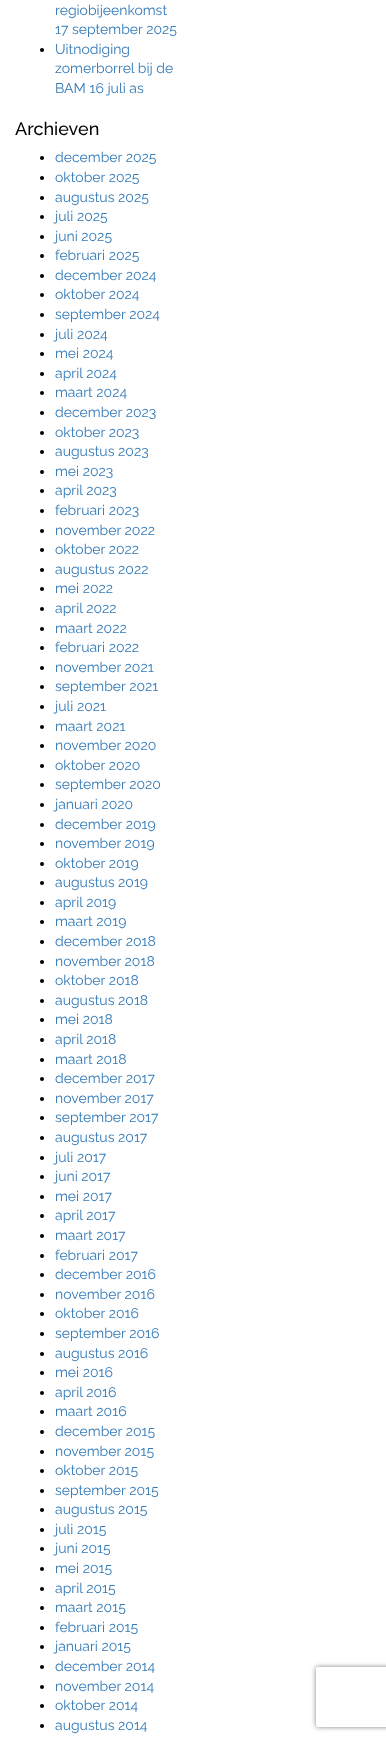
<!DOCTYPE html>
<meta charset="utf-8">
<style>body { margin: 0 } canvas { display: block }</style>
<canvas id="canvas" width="386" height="1741"></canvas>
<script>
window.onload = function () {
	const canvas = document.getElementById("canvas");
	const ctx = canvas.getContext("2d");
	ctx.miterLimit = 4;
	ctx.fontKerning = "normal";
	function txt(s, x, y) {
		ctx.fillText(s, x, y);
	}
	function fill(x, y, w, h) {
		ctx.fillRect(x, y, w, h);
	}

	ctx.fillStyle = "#FFFFFF";
	fill(0, 0, 386, 1741);
	ctx.fillStyle = "#000000";
	ctx.beginPath();
	ctx.arc(42, 50, 2, 0, Math.PI * 2);
	ctx.fill();
	ctx.beginPath();
	ctx.arc(42, 158, 2, 0, Math.PI * 2);
	ctx.fill();
	ctx.beginPath();
	ctx.arc(42, 178, 2, 0, Math.PI * 2);
	ctx.fill();
	ctx.beginPath();
	ctx.arc(42, 198, 2, 0, Math.PI * 2);
	ctx.fill();
	ctx.beginPath();
	ctx.arc(42, 217, 2, 0, Math.PI * 2);
	ctx.fill();
	ctx.beginPath();
	ctx.arc(42, 237, 2, 0, Math.PI * 2);
	ctx.fill();
	ctx.beginPath();
	ctx.arc(42, 256, 2, 0, Math.PI * 2);
	ctx.fill();
	ctx.beginPath();
	ctx.arc(42, 276, 2, 0, Math.PI * 2);
	ctx.fill();
	ctx.beginPath();
	ctx.arc(42, 295, 2, 0, Math.PI * 2);
	ctx.fill();
	ctx.beginPath();
	ctx.arc(42, 315, 2, 0, Math.PI * 2);
	ctx.fill();
	ctx.beginPath();
	ctx.arc(42, 335, 2, 0, Math.PI * 2);
	ctx.fill();
	ctx.beginPath();
	ctx.arc(42, 354, 2, 0, Math.PI * 2);
	ctx.fill();
	ctx.beginPath();
	ctx.arc(42, 374, 2, 0, Math.PI * 2);
	ctx.fill();
	ctx.beginPath();
	ctx.arc(42, 393, 2, 0, Math.PI * 2);
	ctx.fill();
	ctx.beginPath();
	ctx.arc(42, 413, 2, 0, Math.PI * 2);
	ctx.fill();
	ctx.beginPath();
	ctx.arc(42, 433, 2, 0, Math.PI * 2);
	ctx.fill();
	ctx.beginPath();
	ctx.arc(42, 452, 2, 0, Math.PI * 2);
	ctx.fill();
	ctx.beginPath();
	ctx.arc(42, 472, 2, 0, Math.PI * 2);
	ctx.fill();
	ctx.beginPath();
	ctx.arc(42, 491, 2, 0, Math.PI * 2);
	ctx.fill();
	ctx.beginPath();
	ctx.arc(42, 511, 2, 0, Math.PI * 2);
	ctx.fill();
	ctx.beginPath();
	ctx.arc(42, 531, 2, 0, Math.PI * 2);
	ctx.fill();
	ctx.beginPath();
	ctx.arc(42, 550, 2, 0, Math.PI * 2);
	ctx.fill();
	ctx.beginPath();
	ctx.arc(42, 570, 2, 0, Math.PI * 2);
	ctx.fill();
	ctx.beginPath();
	ctx.arc(42, 589, 2, 0, Math.PI * 2);
	ctx.fill();
	ctx.beginPath();
	ctx.arc(42, 609, 2, 0, Math.PI * 2);
	ctx.fill();
	ctx.beginPath();
	ctx.arc(42, 629, 2, 0, Math.PI * 2);
	ctx.fill();
	ctx.beginPath();
	ctx.arc(42, 648, 2, 0, Math.PI * 2);
	ctx.fill();
	ctx.beginPath();
	ctx.arc(42, 668, 2, 0, Math.PI * 2);
	ctx.fill();
	ctx.beginPath();
	ctx.arc(42, 687, 2, 0, Math.PI * 2);
	ctx.fill();
	ctx.beginPath();
	ctx.arc(42, 707, 2, 0, Math.PI * 2);
	ctx.fill();
	ctx.beginPath();
	ctx.arc(42, 727, 2, 0, Math.PI * 2);
	ctx.fill();
	ctx.beginPath();
	ctx.arc(42, 746, 2, 0, Math.PI * 2);
	ctx.fill();
	ctx.beginPath();
	ctx.arc(42, 766, 2, 0, Math.PI * 2);
	ctx.fill();
	ctx.beginPath();
	ctx.arc(42, 785, 2, 0, Math.PI * 2);
	ctx.fill();
	ctx.beginPath();
	ctx.arc(42, 805, 2, 0, Math.PI * 2);
	ctx.fill();
	ctx.beginPath();
	ctx.arc(42, 825, 2, 0, Math.PI * 2);
	ctx.fill();
	ctx.beginPath();
	ctx.arc(42, 844, 2, 0, Math.PI * 2);
	ctx.fill();
	ctx.beginPath();
	ctx.arc(42, 864, 2, 0, Math.PI * 2);
	ctx.fill();
	ctx.beginPath();
	ctx.arc(42, 883, 2, 0, Math.PI * 2);
	ctx.fill();
	ctx.beginPath();
	ctx.arc(42, 903, 2, 0, Math.PI * 2);
	ctx.fill();
	ctx.beginPath();
	ctx.arc(42, 922, 2, 0, Math.PI * 2);
	ctx.fill();
	ctx.beginPath();
	ctx.arc(42, 942, 2, 0, Math.PI * 2);
	ctx.fill();
	ctx.beginPath();
	ctx.arc(42, 962, 2, 0, Math.PI * 2);
	ctx.fill();
	ctx.beginPath();
	ctx.arc(42, 981, 2, 0, Math.PI * 2);
	ctx.fill();
	ctx.beginPath();
	ctx.arc(42, 1001, 2, 0, Math.PI * 2);
	ctx.fill();
	ctx.beginPath();
	ctx.arc(42, 1020, 2, 0, Math.PI * 2);
	ctx.fill();
	ctx.beginPath();
	ctx.arc(42, 1040, 2, 0, Math.PI * 2);
	ctx.fill();
	ctx.beginPath();
	ctx.arc(42, 1060, 2, 0, Math.PI * 2);
	ctx.fill();
	ctx.beginPath();
	ctx.arc(42, 1079, 2, 0, Math.PI * 2);
	ctx.fill();
	ctx.beginPath();
	ctx.arc(42, 1099, 2, 0, Math.PI * 2);
	ctx.fill();
	ctx.beginPath();
	ctx.arc(42, 1118, 2, 0, Math.PI * 2);
	ctx.fill();
	ctx.beginPath();
	ctx.arc(42, 1138, 2, 0, Math.PI * 2);
	ctx.fill();
	ctx.beginPath();
	ctx.arc(42, 1158, 2, 0, Math.PI * 2);
	ctx.fill();
	ctx.beginPath();
	ctx.arc(42, 1177, 2, 0, Math.PI * 2);
	ctx.fill();
	ctx.beginPath();
	ctx.arc(42, 1197, 2, 0, Math.PI * 2);
	ctx.fill();
	ctx.beginPath();
	ctx.arc(42, 1216, 2, 0, Math.PI * 2);
	ctx.fill();
	ctx.beginPath();
	ctx.arc(42, 1236, 2, 0, Math.PI * 2);
	ctx.fill();
	ctx.beginPath();
	ctx.arc(42, 1256, 2, 0, Math.PI * 2);
	ctx.fill();
	ctx.beginPath();
	ctx.arc(42, 1275, 2, 0, Math.PI * 2);
	ctx.fill();
	ctx.beginPath();
	ctx.arc(42, 1295, 2, 0, Math.PI * 2);
	ctx.fill();
	ctx.beginPath();
	ctx.arc(42, 1314, 2, 0, Math.PI * 2);
	ctx.fill();
	ctx.beginPath();
	ctx.arc(42, 1334, 2, 0, Math.PI * 2);
	ctx.fill();
	ctx.beginPath();
	ctx.arc(42, 1354, 2, 0, Math.PI * 2);
	ctx.fill();
	ctx.beginPath();
	ctx.arc(42, 1373, 2, 0, Math.PI * 2);
	ctx.fill();
	ctx.beginPath();
	ctx.arc(42, 1393, 2, 0, Math.PI * 2);
	ctx.fill();
	ctx.beginPath();
	ctx.arc(42, 1412, 2, 0, Math.PI * 2);
	ctx.fill();
	ctx.beginPath();
	ctx.arc(42, 1432, 2, 0, Math.PI * 2);
	ctx.fill();
	ctx.beginPath();
	ctx.arc(42, 1452, 2, 0, Math.PI * 2);
	ctx.fill();
	ctx.beginPath();
	ctx.arc(42, 1471, 2, 0, Math.PI * 2);
	ctx.fill();
	ctx.beginPath();
	ctx.arc(42, 1491, 2, 0, Math.PI * 2);
	ctx.fill();
	ctx.beginPath();
	ctx.arc(42, 1510, 2, 0, Math.PI * 2);
	ctx.fill();
	ctx.beginPath();
	ctx.arc(42, 1530, 2, 0, Math.PI * 2);
	ctx.fill();
	ctx.beginPath();
	ctx.arc(42, 1549, 2, 0, Math.PI * 2);
	ctx.fill();
	ctx.beginPath();
	ctx.arc(42, 1569, 2, 0, Math.PI * 2);
	ctx.fill();
	ctx.beginPath();
	ctx.arc(42, 1589, 2, 0, Math.PI * 2);
	ctx.fill();
	ctx.beginPath();
	ctx.arc(42, 1608, 2, 0, Math.PI * 2);
	ctx.fill();
	ctx.beginPath();
	ctx.arc(42, 1628, 2, 0, Math.PI * 2);
	ctx.fill();
	ctx.beginPath();
	ctx.arc(42, 1647, 2, 0, Math.PI * 2);
	ctx.fill();
	ctx.beginPath();
	ctx.arc(42, 1667, 2, 0, Math.PI * 2);
	ctx.fill();
	ctx.beginPath();
	ctx.arc(42, 1687, 2, 0, Math.PI * 2);
	ctx.fill();
	ctx.beginPath();
	ctx.arc(42, 1706, 2, 0, Math.PI * 2);
	ctx.fill();
	ctx.beginPath();
	ctx.arc(42, 1726, 2, 0, Math.PI * 2);
	ctx.fill();
	ctx.save();
	ctx.beginPath();
	ctx.moveTo(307, 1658);
	ctx.lineTo(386, 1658);
	ctx.lineTo(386, 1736);
	ctx.lineTo(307, 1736);
	ctx.closePath();
	ctx.moveTo(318, 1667);
	ctx.lineTo(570, 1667);
	ctx.bezierCurveTo(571, 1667, 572, 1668, 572, 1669);
	ctx.lineTo(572, 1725);
	ctx.bezierCurveTo(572, 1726, 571, 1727, 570, 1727);
	ctx.lineTo(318, 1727);
	ctx.bezierCurveTo(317, 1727, 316, 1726, 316, 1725);
	ctx.lineTo(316, 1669);
	ctx.bezierCurveTo(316, 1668, 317, 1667, 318, 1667);
	ctx.closePath();
	ctx.clip("evenodd");
	ctx.fillStyle = "#808080";
	ctx.filter = "blur(2.5px)";
	ctx.beginPath();
	ctx.roundRect(316, 1667, 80, 60, 2);
	ctx.fill();
	ctx.filter = "none";
	ctx.restore();
	ctx.font = "14px Raleway";
	ctx.fillStyle = "#337AB7";
	txt("regiobijeenkomst", 55, 15);
	txt("17 september 2025", 55, 34);
	txt("Uitnodiging", 55, 54);
	txt("zomerborrel bij de", 55, 73);
	txt("BAM 16 juli as", 55, 93);
	ctx.font = "500 18px Raleway";
	ctx.fillStyle = "#000000";
	txt("Archieven", 15, 135);
	ctx.font = "14px Raleway";
	ctx.fillStyle = "#337AB7";
	txt("december 2025", 55, 162);
	txt("oktober 2025", 55, 182);
	txt("augustus 2025", 55, 202);
	txt("juli 2025", 55, 221);
	txt("juni 2025", 55, 241);
	txt("februari 2025", 55, 260);
	txt("december 2024", 55, 280);
	txt("oktober 2024", 55, 299);
	txt("september 2024", 55, 319);
	txt("juli 2024", 55, 339);
	txt("mei 2024", 55, 358);
	txt("april 2024", 55, 378);
	txt("maart 2024", 55, 397);
	txt("december 2023", 55, 417);
	txt("oktober 2023", 55, 437);
	txt("augustus 2023", 55, 456);
	txt("mei 2023", 55, 476);
	txt("april 2023", 55, 495);
	txt("februari 2023", 55, 515);
	txt("november 2022", 55, 535);
	txt("oktober 2022", 55, 554);
	txt("augustus 2022", 55, 574);
	txt("mei 2022", 55, 593);
	txt("april 2022", 55, 613);
	txt("maart 2022", 55, 633);
	txt("februari 2022", 55, 652);
	txt("november 2021", 55, 672);
	txt("september 2021", 55, 691);
	txt("juli 2021", 55, 711);
	txt("maart 2021", 55, 731);
	txt("november 2020", 55, 750);
	txt("oktober 2020", 55, 770);
	txt("september 2020", 55, 789);
	txt("januari 2020", 55, 809);
	txt("december 2019", 55, 829);
	txt("november 2019", 55, 848);
	txt("oktober 2019", 55, 868);
	txt("augustus 2019", 55, 887);
	txt("april 2019", 55, 907);
	txt("maart 2019", 55, 926);
	txt("december 2018", 55, 946);
	txt("november 2018", 55, 966);
	txt("oktober 2018", 55, 985);
	txt("augustus 2018", 55, 1005);
	txt("mei 2018", 55, 1024);
	txt("april 2018", 55, 1044);
	txt("maart 2018", 55, 1064);
	txt("december 2017", 55, 1083);
	txt("november 2017", 55, 1103);
	txt("september 2017", 55, 1122);
	txt("augustus 2017", 55, 1142);
	txt("juli 2017", 55, 1162);
	txt("juni 2017", 55, 1181);
	txt("mei 2017", 55, 1201);
	txt("april 2017", 55, 1220);
	txt("maart 2017", 55, 1240);
	txt("februari 2017", 55, 1260);
	txt("december 2016", 55, 1279);
	txt("november 2016", 55, 1299);
	txt("oktober 2016", 55, 1318);
	txt("september 2016", 55, 1338);
	txt("augustus 2016", 55, 1358);
	txt("mei 2016", 55, 1377);
	txt("april 2016", 55, 1397);
	txt("maart 2016", 55, 1416);
	txt("december 2015", 55, 1436);
	txt("november 2015", 55, 1456);
	txt("oktober 2015", 55, 1475);
	txt("september 2015", 55, 1495);
	txt("augustus 2015", 55, 1514);
	txt("juli 2015", 55, 1534);
	txt("juni 2015", 55, 1553);
	txt("mei 2015", 55, 1573);
	txt("april 2015", 55, 1593);
	txt("maart 2015", 55, 1612);
	txt("februari 2015", 55, 1632);
	txt("januari 2015", 55, 1651);
	txt("december 2014", 55, 1671);
	txt("november 2014", 55, 1691);
	txt("oktober 2014", 55, 1710);
	txt("augustus 2014", 55, 1730);
};
</script>
